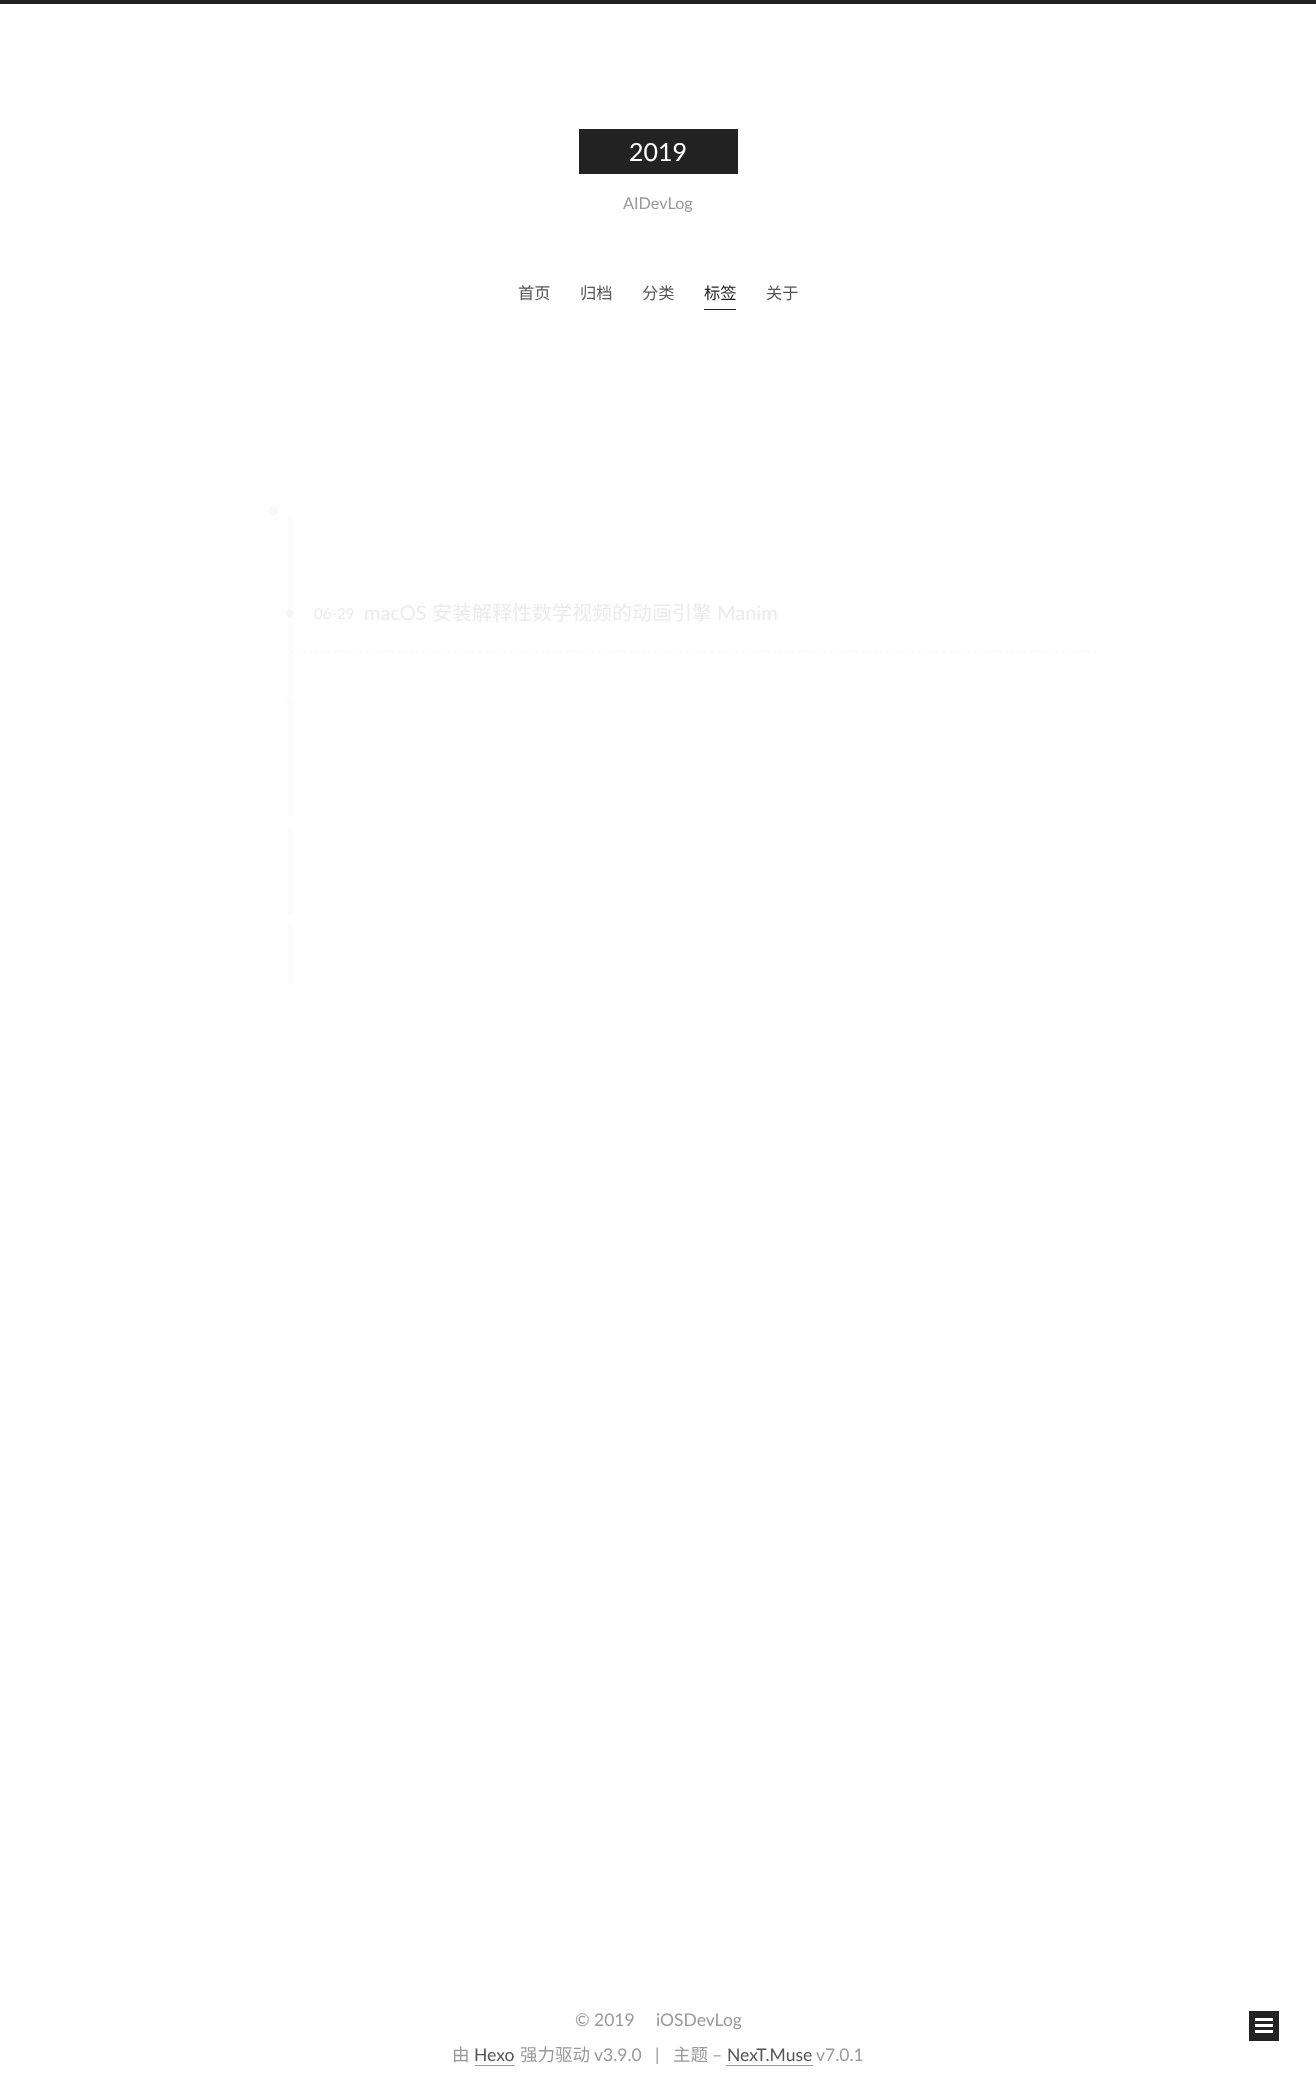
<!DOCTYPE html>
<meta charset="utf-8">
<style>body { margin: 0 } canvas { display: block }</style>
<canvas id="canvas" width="1316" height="2097"></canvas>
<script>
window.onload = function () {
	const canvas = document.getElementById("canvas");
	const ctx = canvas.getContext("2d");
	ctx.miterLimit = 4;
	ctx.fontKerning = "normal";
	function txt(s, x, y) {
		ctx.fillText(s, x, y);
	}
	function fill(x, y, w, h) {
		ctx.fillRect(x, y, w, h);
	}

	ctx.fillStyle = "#FFFFFF";
	fill(0, 0, 1316, 2097);
	ctx.fillStyle = "#222222";
	fill(0, 0, 1316, 4);
	fill(579, 129, 159, 45);
	fill(704, 309, 32, 1);
	ctx.fillStyle = "#F9F9F9";
	ctx.beginPath();
	ctx.arc(273, 511, 5, 0, Math.PI * 2);
	ctx.fill();
	ctx.fillStyle = "#FCFCFC";
	fill(288, 515, 5, 469);
	ctx.beginPath();
	ctx.moveTo(290, 651.5);
	ctx.lineTo(1096, 651.5);
	ctx.strokeStyle = "#F8F8F8";
	ctx.lineWidth = 1.2;
	ctx.setLineDash([3.75, 2.52]);
	ctx.stroke();
	ctx.fillStyle = "#F6F6F6";
	ctx.beginPath();
	ctx.arc(290, 613, 4.5, 0, Math.PI * 2);
	ctx.fill();
	ctx.strokeStyle = "#FFFFFF";
	ctx.lineWidth = 1;
	ctx.setLineDash([]);
	ctx.stroke();
	ctx.fillStyle = "#FCFCFC";
	ctx.beginPath();
	ctx.arc(290, 703, 4.5, 0, Math.PI * 2);
	ctx.fill();
	ctx.stroke();
	ctx.beginPath();
	ctx.moveTo(290, 860.5);
	ctx.lineTo(1096, 860.5);
	ctx.lineWidth = 1.2;
	ctx.setLineDash([3.75, 2.52]);
	ctx.stroke();
	ctx.fillStyle = "#FFFFFF";
	ctx.beginPath();
	ctx.arc(290, 821, 5, 0, Math.PI * 2);
	ctx.fill();
	ctx.beginPath();
	ctx.arc(290, 919, 5, 0, Math.PI * 2);
	ctx.fill();
	ctx.fillStyle = "#222222";
	fill(1249, 2011, 30, 30);
	ctx.fillStyle = "#FFFFFF";
	fill(1255, 2018, 18, 3);
	fill(1255, 2024, 18, 3);
	fill(1255, 2030, 18, 3);
	ctx.fillStyle = "#999999";
	fill(475, 2065, 40, 1);
	fill(726, 2065, 87, 1);
	ctx.font = "25px Lato";
	ctx.fillStyle = "#FFFFFF";
	txt("2019", 629, 161);
	ctx.font = "16.25px Lato";
	ctx.fillStyle = "#999999";
	txt("AIDevLog", 623, 209);
	ctx.font = "16.25px Noto Sans CJK SC";
	ctx.fillStyle = "#555555";
	txt("首页", 518, 299);
	txt("归档", 580, 299);
	txt("分类", 642, 299);
	ctx.fillStyle = "#222222";
	txt("标签", 704, 299);
	ctx.fillStyle = "#555555";
	txt("关于", 766, 299);
	ctx.font = "15px Lato";
	ctx.fillStyle = "#EBEBEB";
	txt("06-29", 314, 619);
	ctx.font = "20px Lato";
	txt("macOS", 364, 620);
	ctx.font = "20px Noto Sans CJK SC";
	txt("安装解释性数学视频的动画引擎", 432, 620);
	ctx.font = "20px Lato";
	txt("Manim", 717, 620);
	ctx.font = "17.5px Lato";
	ctx.fillStyle = "#999999";
	txt("© 2019", 575, 2026);
	txt("iOSDevLog", 656, 2026);
	ctx.font = "17.5px Noto Sans CJK SC";
	txt("由", 452, 2061);
	ctx.font = "17.5px Lato";
	ctx.fillStyle = "#555555";
	txt("Hexo", 474, 2061);
	ctx.font = "17.5px Noto Sans CJK SC";
	ctx.fillStyle = "#999999";
	txt("强力驱动", 520, 2061);
	ctx.font = "17.5px Lato";
	txt("v3.9.0", 594, 2061);
	txt("|", 655, 2061);
	ctx.font = "17.5px Noto Sans CJK SC";
	txt("主题", 673, 2061);
	ctx.font = "17.5px Lato";
	txt("–", 712, 2061);
	ctx.fillStyle = "#555555";
	txt("NexT.Muse", 727, 2061);
	ctx.fillStyle = "#999999";
	txt("v7.0.1", 816, 2061);
};
</script>
